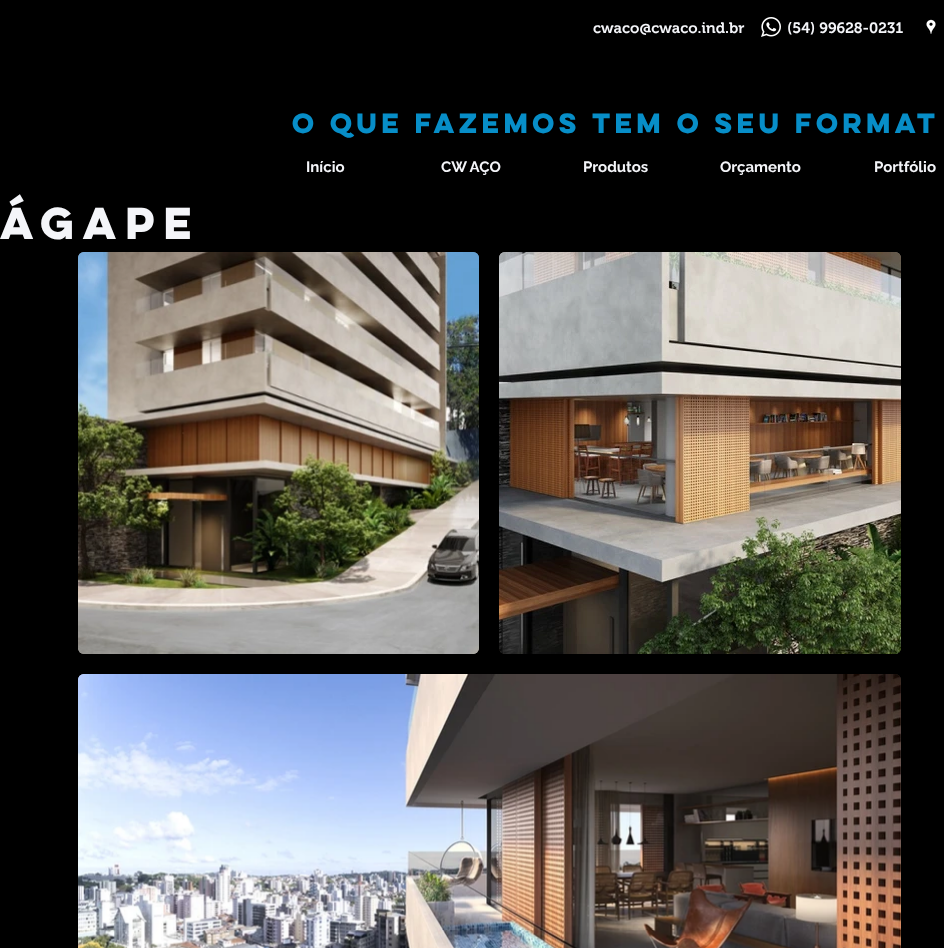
<!DOCTYPE html>
<meta charset="utf-8">
<style>body { margin: 0 } canvas { display: block }</style>
<canvas id="canvas" width="944" height="948"></canvas>
<img id="img1" src="img_01.png" hidden>
<img id="img2" src="img_02.png" hidden>
<img id="img3" src="img_03.png" hidden>
<img id="img4" src="img_04.png" hidden>
<img id="img5" src="img_05.png" hidden>
<img id="img6" src="img_06.png" hidden>
<img id="img7" src="img_07.png" hidden>
<img id="img8" src="img_08.png" hidden>
<script>
window.onload = function () {
	const canvas = document.getElementById("canvas");
	const ctx = canvas.getContext("2d");
	ctx.miterLimit = 4;
	ctx.fontKerning = "normal";
	function txt(s, x, y) {
		ctx.fillText(s, x, y);
	}
	function fill(x, y, w, h) {
		ctx.fillRect(x, y, w, h);
	}
	function img(id, x, y, w, h) {
		ctx.drawImage(document.getElementById(id), x, y, w, h);
	}

	ctx.fillStyle = "#000000";
	fill(0, 0, 944, 948);
	img("img1", 761, 17, 20, 20);
	img("img2", 926, 19, 10, 15);
	img("img3", 78, 252, 401, 402);
	img("img4", 78, 252, 401, 402);
	img("img5", 499, 252, 402, 402);
	img("img6", 499, 252, 402, 402);
	img("img7", 78, 674, 823, 6);
	img("img8", 78, 674, 823, 274);
	ctx.font = "600 15px 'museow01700'";
	ctx.fillStyle = "#F4F5F9";
	txt("cwaco@cwaco.ind.br", 593, 33);
	txt("(54) 99628-0231", 787, 33);
	ctx.letterSpacing = "-1.25px";
	ctx.font = "bold 25px 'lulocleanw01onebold'";
	ctx.fillStyle = "#078EC8";
	txt("O que fazemos tem o seu format", 292, 133);
	ctx.letterSpacing = "0px";
	ctx.font = "bold 15px Raleway";
	ctx.fillStyle = "#F4F5F9";
	txt("Início", 306, 172);
	txt("CW AÇO", 441, 172);
	txt("Produtos", 583, 172);
	txt("Orçamento", 720, 172);
	txt("Portfólio", 874, 172);
	ctx.font = "bold 40px 'lulocleanw01onebold'";
	txt("ágape", 0, 239);
};
</script>
